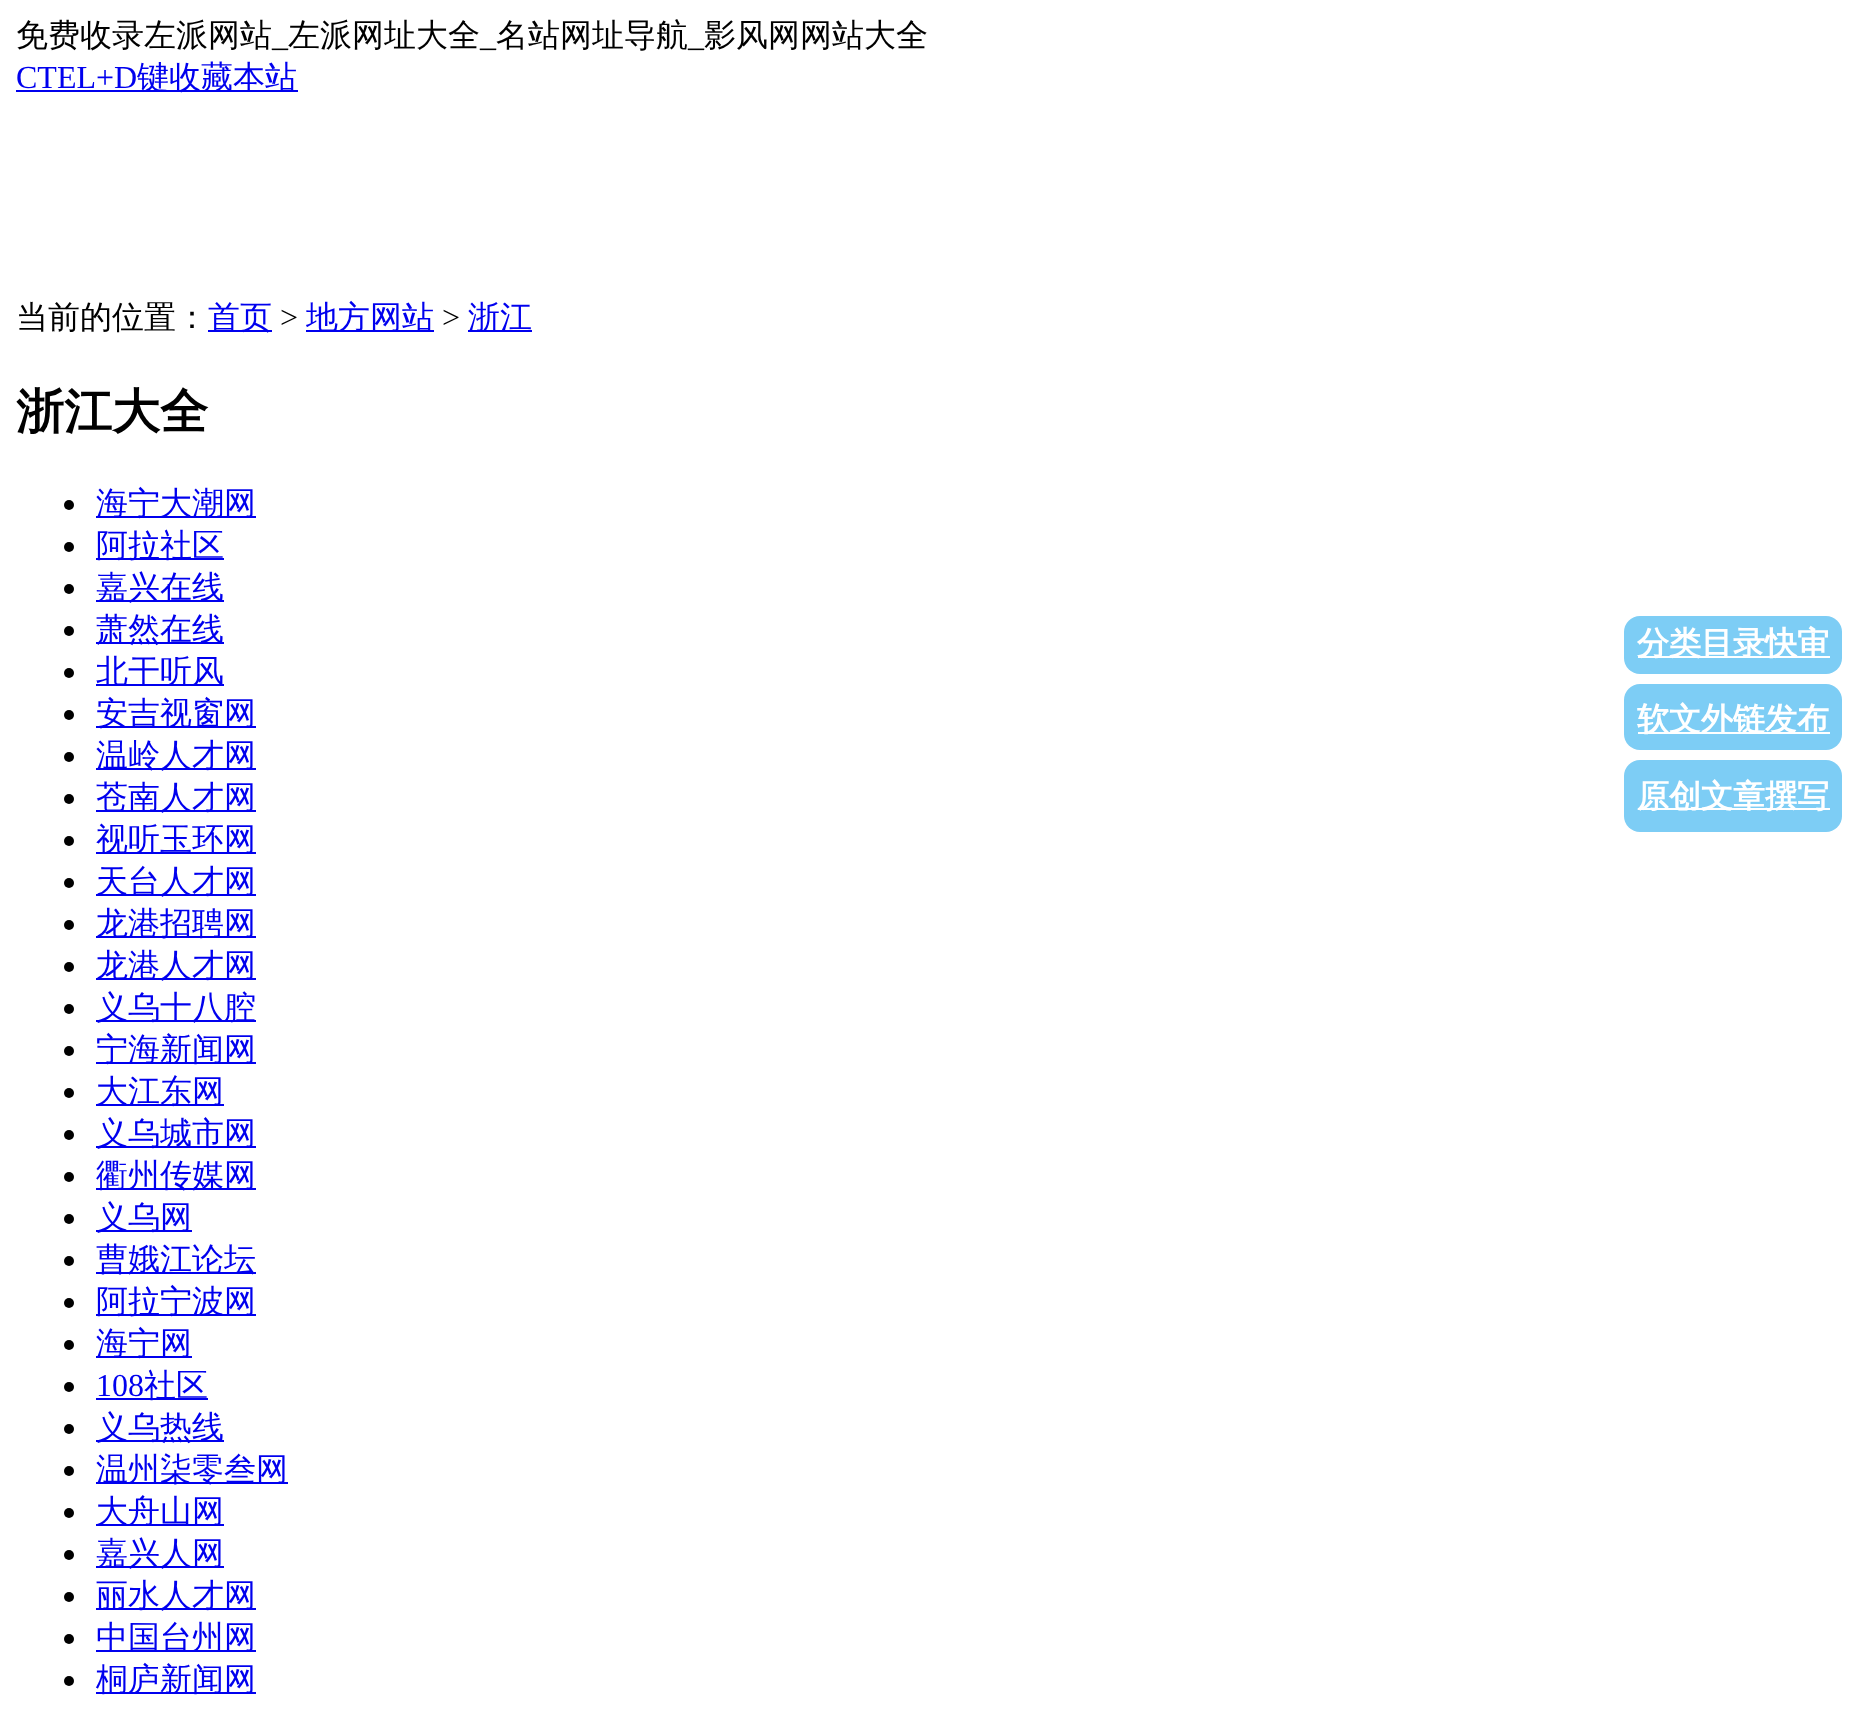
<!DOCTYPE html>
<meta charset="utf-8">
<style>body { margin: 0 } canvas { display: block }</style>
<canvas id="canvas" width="1853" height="1714"></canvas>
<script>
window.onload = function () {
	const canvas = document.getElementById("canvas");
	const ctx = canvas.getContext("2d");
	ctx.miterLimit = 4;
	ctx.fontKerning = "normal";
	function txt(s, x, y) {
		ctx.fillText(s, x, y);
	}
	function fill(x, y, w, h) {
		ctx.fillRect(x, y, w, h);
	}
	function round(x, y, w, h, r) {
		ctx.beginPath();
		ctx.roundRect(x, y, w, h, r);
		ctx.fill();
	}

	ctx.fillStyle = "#FFFFFF";
	fill(0, 0, 1853, 1714);
	ctx.fillStyle = "#0000EE";
	fill(16, 90, 282, 2);
	fill(208, 330, 64, 2);
	fill(306, 330, 128, 2);
	fill(468, 330, 64, 2);
	ctx.fillStyle = "#000000";
	ctx.beginPath();
	ctx.arc(69, 505, 5, 0, Math.PI * 2);
	ctx.fill();
	ctx.fillStyle = "#0000EE";
	fill(96, 516, 160, 2);
	ctx.fillStyle = "#000000";
	ctx.beginPath();
	ctx.arc(69, 547, 5, 0, Math.PI * 2);
	ctx.fill();
	ctx.fillStyle = "#0000EE";
	fill(96, 558, 128, 2);
	ctx.fillStyle = "#000000";
	ctx.beginPath();
	ctx.arc(69, 589, 5, 0, Math.PI * 2);
	ctx.fill();
	ctx.fillStyle = "#0000EE";
	fill(96, 600, 128, 2);
	ctx.fillStyle = "#000000";
	ctx.beginPath();
	ctx.arc(69, 631, 5, 0, Math.PI * 2);
	ctx.fill();
	ctx.fillStyle = "#0000EE";
	fill(96, 642, 128, 2);
	ctx.fillStyle = "#000000";
	ctx.beginPath();
	ctx.arc(69, 673, 5, 0, Math.PI * 2);
	ctx.fill();
	ctx.fillStyle = "#0000EE";
	fill(96, 684, 128, 2);
	ctx.fillStyle = "#000000";
	ctx.beginPath();
	ctx.arc(69, 715, 5, 0, Math.PI * 2);
	ctx.fill();
	ctx.fillStyle = "#0000EE";
	fill(96, 726, 160, 2);
	ctx.fillStyle = "#000000";
	ctx.beginPath();
	ctx.arc(69, 757, 5, 0, Math.PI * 2);
	ctx.fill();
	ctx.fillStyle = "#0000EE";
	fill(96, 768, 160, 2);
	ctx.fillStyle = "#000000";
	ctx.beginPath();
	ctx.arc(69, 799, 5, 0, Math.PI * 2);
	ctx.fill();
	ctx.fillStyle = "#0000EE";
	fill(96, 810, 160, 2);
	ctx.fillStyle = "#000000";
	ctx.beginPath();
	ctx.arc(69, 841, 5, 0, Math.PI * 2);
	ctx.fill();
	ctx.fillStyle = "#0000EE";
	fill(96, 852, 160, 2);
	ctx.fillStyle = "#000000";
	ctx.beginPath();
	ctx.arc(69, 883, 5, 0, Math.PI * 2);
	ctx.fill();
	ctx.fillStyle = "#0000EE";
	fill(96, 894, 160, 2);
	ctx.fillStyle = "#000000";
	ctx.beginPath();
	ctx.arc(69, 925, 5, 0, Math.PI * 2);
	ctx.fill();
	ctx.fillStyle = "#0000EE";
	fill(96, 936, 160, 2);
	ctx.fillStyle = "#000000";
	ctx.beginPath();
	ctx.arc(69, 967, 5, 0, Math.PI * 2);
	ctx.fill();
	ctx.fillStyle = "#0000EE";
	fill(96, 978, 160, 2);
	ctx.fillStyle = "#000000";
	ctx.beginPath();
	ctx.arc(69, 1009, 5, 0, Math.PI * 2);
	ctx.fill();
	ctx.fillStyle = "#0000EE";
	fill(96, 1020, 160, 2);
	ctx.fillStyle = "#000000";
	ctx.beginPath();
	ctx.arc(69, 1051, 5, 0, Math.PI * 2);
	ctx.fill();
	ctx.fillStyle = "#0000EE";
	fill(96, 1062, 160, 2);
	ctx.fillStyle = "#000000";
	ctx.beginPath();
	ctx.arc(69, 1093, 5, 0, Math.PI * 2);
	ctx.fill();
	ctx.fillStyle = "#0000EE";
	fill(96, 1104, 128, 2);
	ctx.fillStyle = "#000000";
	ctx.beginPath();
	ctx.arc(69, 1135, 5, 0, Math.PI * 2);
	ctx.fill();
	ctx.fillStyle = "#0000EE";
	fill(96, 1146, 160, 2);
	ctx.fillStyle = "#000000";
	ctx.beginPath();
	ctx.arc(69, 1177, 5, 0, Math.PI * 2);
	ctx.fill();
	ctx.fillStyle = "#0000EE";
	fill(96, 1188, 160, 2);
	ctx.fillStyle = "#000000";
	ctx.beginPath();
	ctx.arc(69, 1219, 5, 0, Math.PI * 2);
	ctx.fill();
	ctx.fillStyle = "#0000EE";
	fill(96, 1230, 96, 2);
	ctx.fillStyle = "#000000";
	ctx.beginPath();
	ctx.arc(69, 1261, 5, 0, Math.PI * 2);
	ctx.fill();
	ctx.fillStyle = "#0000EE";
	fill(96, 1272, 160, 2);
	ctx.fillStyle = "#000000";
	ctx.beginPath();
	ctx.arc(69, 1303, 5, 0, Math.PI * 2);
	ctx.fill();
	ctx.fillStyle = "#0000EE";
	fill(96, 1314, 160, 2);
	ctx.fillStyle = "#000000";
	ctx.beginPath();
	ctx.arc(69, 1345, 5, 0, Math.PI * 2);
	ctx.fill();
	ctx.fillStyle = "#0000EE";
	fill(96, 1356, 96, 2);
	ctx.fillStyle = "#000000";
	ctx.beginPath();
	ctx.arc(69, 1387, 5, 0, Math.PI * 2);
	ctx.fill();
	ctx.fillStyle = "#0000EE";
	fill(96, 1398, 112, 2);
	ctx.fillStyle = "#000000";
	ctx.beginPath();
	ctx.arc(69, 1429, 5, 0, Math.PI * 2);
	ctx.fill();
	ctx.fillStyle = "#0000EE";
	fill(96, 1440, 128, 2);
	ctx.fillStyle = "#000000";
	ctx.beginPath();
	ctx.arc(69, 1471, 5, 0, Math.PI * 2);
	ctx.fill();
	ctx.fillStyle = "#0000EE";
	fill(96, 1482, 192, 2);
	ctx.fillStyle = "#000000";
	ctx.beginPath();
	ctx.arc(69, 1513, 5, 0, Math.PI * 2);
	ctx.fill();
	ctx.fillStyle = "#0000EE";
	fill(96, 1524, 128, 2);
	ctx.fillStyle = "#000000";
	ctx.beginPath();
	ctx.arc(69, 1555, 5, 0, Math.PI * 2);
	ctx.fill();
	ctx.fillStyle = "#0000EE";
	fill(96, 1566, 128, 2);
	ctx.fillStyle = "#000000";
	ctx.beginPath();
	ctx.arc(69, 1597, 5, 0, Math.PI * 2);
	ctx.fill();
	ctx.fillStyle = "#0000EE";
	fill(96, 1608, 160, 2);
	ctx.fillStyle = "#000000";
	ctx.beginPath();
	ctx.arc(69, 1639, 5, 0, Math.PI * 2);
	ctx.fill();
	ctx.fillStyle = "#0000EE";
	fill(96, 1650, 160, 2);
	ctx.fillStyle = "#000000";
	ctx.beginPath();
	ctx.arc(69, 1681, 5, 0, Math.PI * 2);
	ctx.fill();
	ctx.fillStyle = "#0000EE";
	fill(96, 1692, 160, 2);
	ctx.fillStyle = "#7DCDF5";
	round(1624, 616, 218, 58, 16);
	ctx.fillStyle = "#FFFFFF";
	fill(1638, 656, 192, 2);
	ctx.fillStyle = "#7DCDF5";
	round(1624, 684, 218, 66, 16);
	ctx.fillStyle = "#FFFFFF";
	fill(1638, 732, 192, 2);
	ctx.fillStyle = "#7DCDF5";
	round(1624, 760, 218, 72, 16);
	ctx.fillStyle = "#FFFFFF";
	fill(1638, 808, 192, 2);
	ctx.font = "500 32px WenQuanYi Zen Hei";
	ctx.fillStyle = "#000000";
	txt("免费收录左派网站", 16, 46);
	ctx.font = "32px Liberation Serif";
	txt("_", 272, 46);
	ctx.font = "500 32px WenQuanYi Zen Hei";
	txt("左派网址大全", 288, 46);
	ctx.font = "32px Liberation Serif";
	txt("_", 480, 46);
	ctx.font = "500 32px WenQuanYi Zen Hei";
	txt("名站网址导航", 496, 46);
	ctx.font = "32px Liberation Serif";
	txt("_", 688, 46);
	ctx.font = "500 32px WenQuanYi Zen Hei";
	txt("影风网网站大全", 704, 46);
	ctx.font = "32px Liberation Serif";
	ctx.fillStyle = "#0000EE";
	txt("CTEL+D", 16, 88);
	ctx.font = "500 32px WenQuanYi Zen Hei";
	txt("键收藏本站", 137, 88);
	ctx.fillStyle = "#000000";
	txt("当前的位置：", 16, 328);
	ctx.fillStyle = "#0000EE";
	txt("首页", 208, 328);
	ctx.font = "32px Liberation Serif";
	ctx.fillStyle = "#000000";
	txt(">", 280, 328);
	ctx.font = "500 32px WenQuanYi Zen Hei";
	ctx.fillStyle = "#0000EE";
	txt("地方网站", 306, 328);
	ctx.font = "32px Liberation Serif";
	ctx.fillStyle = "#000000";
	txt(">", 442, 328);
	ctx.font = "500 32px WenQuanYi Zen Hei";
	ctx.fillStyle = "#0000EE";
	txt("浙江", 468, 328);
	ctx.font = "bold 48px WenQuanYi Zen Hei";
	ctx.fillStyle = "#000000";
	txt("浙江大全", 16, 428);
	ctx.font = "500 32px WenQuanYi Zen Hei";
	ctx.fillStyle = "#0000EE";
	txt("海宁大潮网", 96, 514);
	txt("阿拉社区", 96, 556);
	txt("嘉兴在线", 96, 598);
	txt("萧然在线", 96, 640);
	txt("北干听风", 96, 682);
	txt("安吉视窗网", 96, 724);
	txt("温岭人才网", 96, 766);
	txt("苍南人才网", 96, 808);
	txt("视听玉环网", 96, 850);
	txt("天台人才网", 96, 892);
	txt("龙港招聘网", 96, 934);
	txt("龙港人才网", 96, 976);
	txt("义乌十八腔", 96, 1018);
	txt("宁海新闻网", 96, 1060);
	txt("大江东网", 96, 1102);
	txt("义乌城市网", 96, 1144);
	txt("衢州传媒网", 96, 1186);
	txt("义乌网", 96, 1228);
	txt("曹娥江论坛", 96, 1270);
	txt("阿拉宁波网", 96, 1312);
	txt("海宁网", 96, 1354);
	ctx.font = "32px Liberation Serif";
	txt("108", 96, 1396);
	ctx.font = "500 32px WenQuanYi Zen Hei";
	txt("社区", 144, 1396);
	txt("义乌热线", 96, 1438);
	txt("温州柒零叁网", 96, 1480);
	txt("大舟山网", 96, 1522);
	txt("嘉兴人网", 96, 1564);
	txt("丽水人才网", 96, 1606);
	txt("中国台州网", 96, 1648);
	txt("桐庐新闻网", 96, 1690);
	ctx.font = "bold 32px WenQuanYi Zen Hei";
	ctx.fillStyle = "#FFFFFF";
	txt("分类目录快审", 1637, 654);
	txt("软文外链发布", 1637, 730);
	txt("原创文章撰写", 1637, 807);
};
</script>
